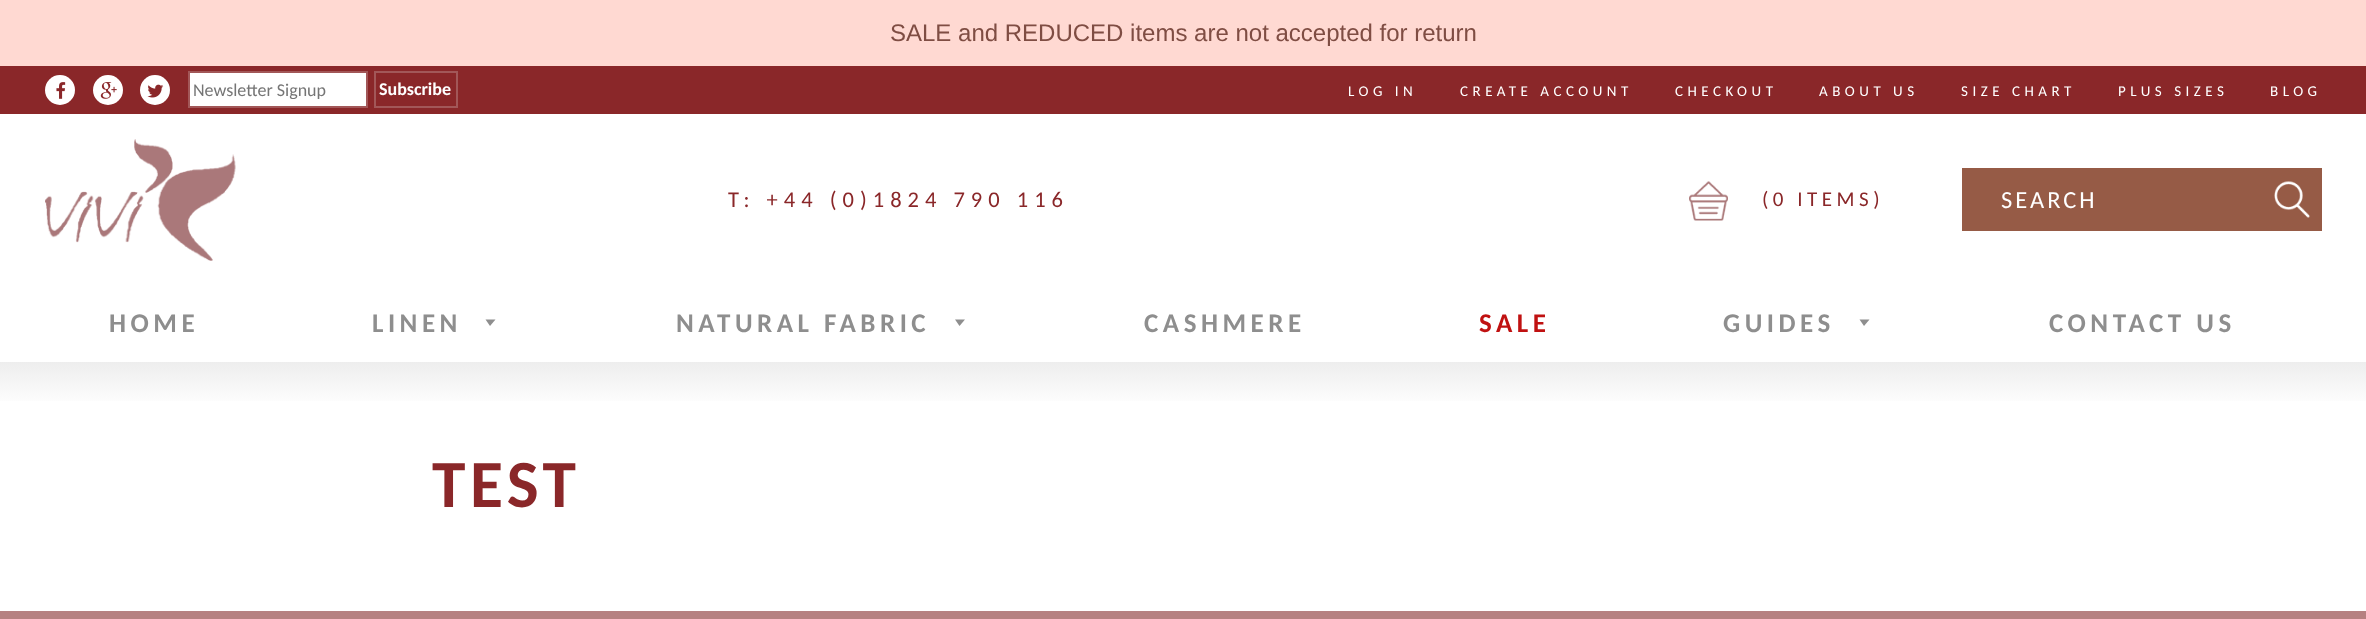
<!DOCTYPE html>
<meta charset="utf-8">
<style>body { margin: 0 } canvas { display: block }</style>
<canvas id="canvas" width="2366" height="619"></canvas>
<img id="img1" src="img_01.png" hidden>
<img id="img2" src="img_02.png" hidden>
<img id="img3" src="img_03.png" hidden>
<img id="img4" src="img_04.png" hidden>
<img id="img5" src="img_05.png" hidden>
<img id="img6" src="img_06.png" hidden>
<script>
window.onload = function () {
	const canvas = document.getElementById("canvas");
	const ctx = canvas.getContext("2d");
	ctx.miterLimit = 4;
	ctx.fontKerning = "normal";
	function txt(s, x, y) {
		ctx.fillText(s, x, y);
	}
	function fill(x, y, w, h) {
		ctx.fillRect(x, y, w, h);
	}
	function img(id, x, y, w, h) {
		ctx.drawImage(document.getElementById(id), x, y, w, h);
	}
	let gradient;

	ctx.fillStyle = "#FFFFFF";
	fill(0, 0, 2366, 619);
	ctx.fillStyle = "#FFD9D2";
	fill(0, 0, 2366, 66);
	ctx.fillStyle = "#8A2729";
	fill(0, 66, 2366, 48);
	ctx.fillStyle = "#FFFFFF";
	ctx.beginPath();
	ctx.arc(60, 90, 15, 0, Math.PI * 2);
	ctx.fill();
	img("img1", 56, 82, 10, 17);
	ctx.beginPath();
	ctx.arc(108, 90, 15, 0, Math.PI * 2);
	ctx.fill();
	img("img2", 100, 82, 17, 17);
	ctx.beginPath();
	ctx.arc(155, 90, 15, 0, Math.PI * 2);
	ctx.fill();
	img("img3", 147, 84, 17, 14);
	ctx.beginPath();
	ctx.rect(189, 72, 178, 35);
	ctx.fill();
	ctx.strokeStyle = "#A25758";
	ctx.lineWidth = 2;
	ctx.stroke();
	ctx.strokeRect(375, 72, 82, 35);
	img("img4", 45, 139, 191, 122);
	img("img5", 1689, 181, 39, 40);
	ctx.fillStyle = "#965B46";
	fill(1962, 168, 360, 63);
	img("img6", 2274, 181, 36, 37);
	ctx.fillStyle = "#8E8E8E";
	ctx.beginPath();
	ctx.moveTo(485.5, 319.5);
	ctx.lineTo(490, 326);
	ctx.lineTo(495.5, 319.5);
	ctx.closePath();
	ctx.fill();
	ctx.beginPath();
	ctx.moveTo(955, 319.5);
	ctx.lineTo(959.5, 326);
	ctx.lineTo(965, 319.5);
	ctx.closePath();
	ctx.fill();
	ctx.beginPath();
	ctx.moveTo(1859.5, 319.5);
	ctx.lineTo(1864, 326);
	ctx.lineTo(1869.5, 319.5);
	ctx.closePath();
	ctx.fill();
	gradient = ctx.createLinearGradient(1184, 361, 1184, 407);
	gradient.addColorStop(0, "#EDEDED");
	gradient.addColorStop(1, "#FFFFFF");
	ctx.fillStyle = gradient;
	fill(0, 362, 2366, 39);
	ctx.fillStyle = "#B68181";
	fill(0, 611, 2366, 8);
	ctx.font = "24px Liberation Sans";
	ctx.fillStyle = "#7F4D43";
	txt("SALE and REDUCED items are not accepted for return", 890, 41);
	ctx.font = "18px Carlito";
	ctx.fillStyle = "#757575";
	txt("Newsletter Signup", 193, 96);
	ctx.font = "bold 18px Carlito";
	ctx.fillStyle = "#FFFFFF";
	txt("Subscribe", 379, 95);
	ctx.letterSpacing = "4.5px";
	ctx.font = "15px Carlito";
	txt("LOG IN", 1348, 96);
	txt("CREATE ACCOUNT", 1460, 96);
	txt("CHECKOUT", 1675, 96);
	txt("ABOUT US", 1819, 96);
	txt("SIZE CHART", 1961, 96);
	txt("PLUS SIZES", 2118, 96);
	txt("BLOG", 2270, 96);
	ctx.letterSpacing = "6px";
	ctx.font = "22.5px Carlito";
	ctx.fillStyle = "#8A2729";
	txt("T: +44 (0)1824 790 116", 728, 207);
	ctx.letterSpacing = "4.5px";
	ctx.font = "21px Carlito";
	txt("(0 ITEMS)", 1762, 206);
	ctx.letterSpacing = "3px";
	ctx.font = "24.5px Carlito";
	ctx.fillStyle = "#FFFFFF";
	txt("SEARCH", 2001, 208);
	ctx.letterSpacing = "4.5px";
	ctx.font = "bold 27px Carlito";
	ctx.fillStyle = "#8E8E8E";
	txt("HOME", 109, 332);
	txt("LINEN", 372, 332);
	txt("NATURAL FABRIC", 676, 332);
	txt("CASHMERE", 1144, 332);
	ctx.fillStyle = "#C01111";
	txt("SALE", 1479, 332);
	ctx.fillStyle = "#8E8E8E";
	txt("GUIDES", 1723, 332);
	txt("CONTACT US", 2049, 332);
	ctx.font = "bold 67.5px Carlito";
	ctx.fillStyle = "#8A2729";
	txt("TEST", 432, 507);
};
</script>
